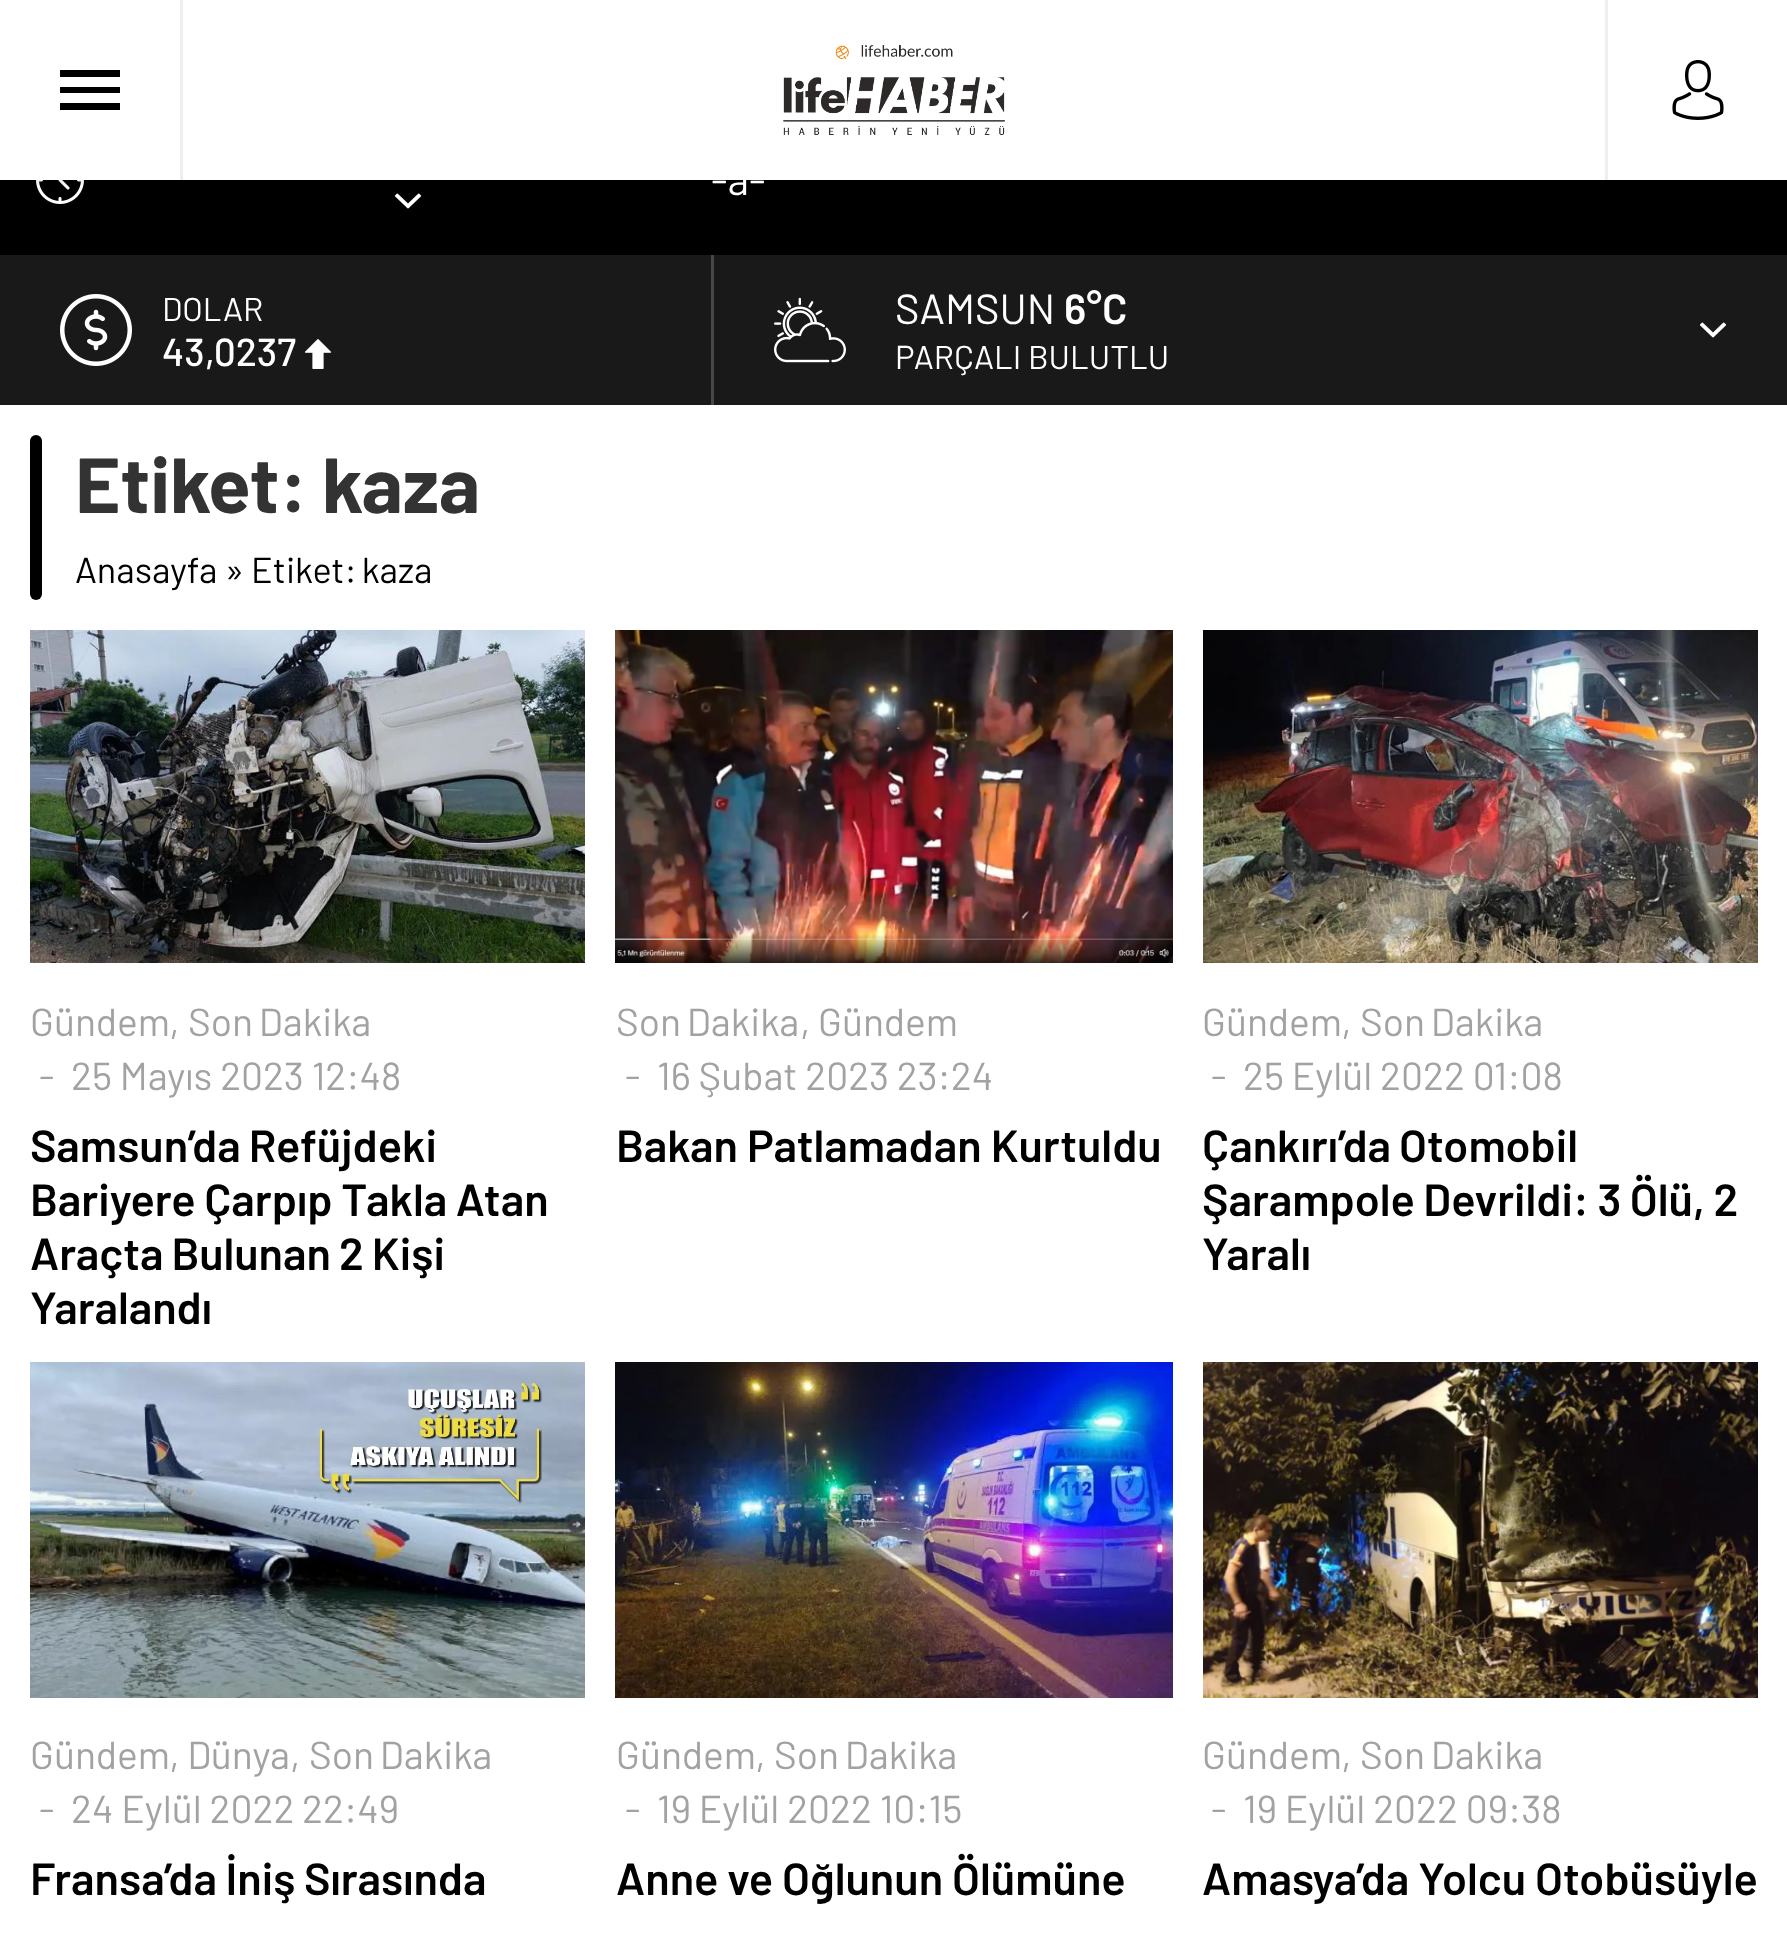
<!DOCTYPE html>
<meta charset="utf-8">
<style>body { margin: 0 } canvas { display: block }</style>
<canvas id="canvas" width="1787" height="1937"></canvas>
<img id="img1" src="img_03.png" hidden>
<img id="img2" src="img_04.png" hidden>
<img id="img3" src="img_01.png" hidden>
<img id="img4" src="img_02.png" hidden>
<img id="img5" src="img_05.png" hidden>
<img id="img6" src="img_06.png" hidden>
<img id="img7" src="img_07.png" hidden>
<img id="img8" src="img_08.png" hidden>
<img id="img9" src="img_09.png" hidden>
<img id="img10" src="img_10.png" hidden>
<img id="img11" src="img_11.png" hidden>
<img id="img12" src="img_12.png" hidden>
<img id="img13" src="img_13.png" hidden>
<img id="img14" src="img_14.png" hidden>
<script>
window.onload = function () {
	const canvas = document.getElementById("canvas");
	const ctx = canvas.getContext("2d");
	ctx.miterLimit = 4;
	ctx.fontKerning = "normal";
	function txt(s, x, y) {
		ctx.fillText(s, x, y);
	}
	function fill(x, y, w, h) {
		ctx.fillRect(x, y, w, h);
	}
	function round(x, y, w, h, r) {
		ctx.beginPath();
		ctx.roundRect(x, y, w, h, r);
		ctx.fill();
	}
	function img(id, x, y, w, h) {
		ctx.drawImage(document.getElementById(id), x, y, w, h);
	}

	ctx.fillStyle = "#000000";
	fill(0, 0, 1787, 1937);
	img("img1", 36, 180, 48, 24);
	img("img2", 394, 193, 28, 16);
	ctx.fillStyle = "rgba(0, 0, 0, 0.15)";
	ctx.filter = "blur(4.5px)";
	ctx.beginPath();
	ctx.rect(0, 0, 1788, 180);
	ctx.fill();
	ctx.filter = "none";
	ctx.fillStyle = "#FFFFFF";
	fill(0, 0, 1787, 180);
	ctx.fillStyle = "#EEEEEE";
	fill(180, 0, 3, 180);
	ctx.fillStyle = "#000000";
	ctx.beginPath();
	ctx.moveTo(60, 110);
	ctx.lineTo(120, 110);
	ctx.lineTo(120, 103);
	ctx.lineTo(60, 103);
	ctx.closePath();
	ctx.moveTo(60, 93);
	ctx.lineTo(120, 93);
	ctx.lineTo(120, 87);
	ctx.lineTo(60, 87);
	ctx.closePath();
	ctx.moveTo(60, 70);
	ctx.lineTo(60, 77);
	ctx.lineTo(120, 77);
	ctx.lineTo(120, 70);
	ctx.closePath();
	ctx.fill();
	img("img3", 783, 45, 222, 90);
	ctx.fillStyle = "#EEEEEE";
	fill(1605, 0, 3, 180);
	img("img4", 1672, 60, 52, 60);
	ctx.fillStyle = "#191919";
	fill(0, 255, 711, 150);
	ctx.fillStyle = "#474747";
	fill(711, 255, 3, 150);
	img("img5", 60, 294, 72, 72);
	img("img6", 304, 339, 28, 30);
	ctx.fillStyle = "#191919";
	fill(714, 255, 1073, 150);
	img("img7", 774, 297, 72, 66);
	img("img8", 1699, 322, 28, 16);
	ctx.fillStyle = "#FFFFFF";
	fill(0, 405, 1787, 1532);
	ctx.fillStyle = "#000000";
	round(30, 435, 12, 165, 6);
	img("img9", 30, 630, 555, 333);
	img("img10", 615, 630, 558, 333);
	img("img11", 1203, 630, 555, 333);
	img("img12", 30, 1362, 555, 336);
	img("img13", 615, 1362, 558, 336);
	img("img14", 1203, 1362, 555, 336);
	ctx.wordSpacing = "-0.5px";
	ctx.font = "42px Barlow";
	ctx.fillStyle = "#FFFFFF";
	txt("-a-", 711, 195);
	ctx.wordSpacing = "0px";
	ctx.font = "33px Barlow";
	txt("DOLAR", 162, 321);
	ctx.font = "500 39px Barlow";
	txt("43,0237", 162, 366);
	ctx.font = "42px Barlow";
	txt("SAMSUN", 895, 324);
	ctx.font = "600 42px Barlow";
	txt("6°C", 1064, 324);
	ctx.font = "33px Barlow";
	txt("PARÇALI BULUTLU", 895, 369);
	ctx.font = "bold 78px Barlow";
	ctx.fillStyle = "#333333";
	txt("Etiket:", 75, 513);
	txt("kaza", 322, 513);
	ctx.font = "36px Barlow";
	ctx.fillStyle = "#000000";
	txt("Anasayfa »", 75, 583);
	ctx.wordSpacing = "-2px";
	txt("Etiket: kaza", 251, 583);
	ctx.wordSpacing = "0px";
	ctx.font = "39px Barlow";
	ctx.fillStyle = "#A2A2A2";
	txt("Gündem,", 30, 1036);
	ctx.wordSpacing = "-2px";
	txt("Son Dakika", 188, 1036);
	ctx.wordSpacing = "0px";
	txt("-", 39, 1090);
	txt("25 Mayıs 2023 12:48", 71, 1090);
	ctx.wordSpacing = "-1px";
	ctx.font = "600 45px Barlow";
	ctx.fillStyle = "#000000";
	txt("Samsun’da Refüjdeki", 30, 1162);
	ctx.wordSpacing = "-0.5px";
	txt("Bariyere Çarpıp Takla Atan", 30, 1216);
	ctx.wordSpacing = "-1px";
	txt("Araçta Bulunan 2 Kişi", 30, 1270);
	ctx.wordSpacing = "0px";
	txt("Yaralandı", 30, 1324);
	ctx.wordSpacing = "-2px";
	ctx.font = "39px Barlow";
	ctx.fillStyle = "#A2A2A2";
	txt("Son Dakika", 616, 1036);
	ctx.wordSpacing = "0px";
	txt(", Gündem", 800, 1036);
	txt("-", 625, 1090);
	txt("16 Şubat 2023 23:24", 657, 1090);
	ctx.font = "600 45px Barlow";
	ctx.fillStyle = "#000000";
	txt("Bakan Patlamadan Kurtuldu", 616, 1162);
	ctx.font = "39px Barlow";
	ctx.fillStyle = "#A2A2A2";
	txt("Gündem,", 1202, 1036);
	ctx.wordSpacing = "-2px";
	txt("Son Dakika", 1360, 1036);
	ctx.wordSpacing = "0px";
	txt("-", 1211, 1090);
	txt("25 Eylül 2022 01:08", 1243, 1090);
	ctx.wordSpacing = "-1px";
	ctx.font = "600 45px Barlow";
	ctx.fillStyle = "#000000";
	txt("Çankırı’da Otomobil", 1202, 1162);
	ctx.wordSpacing = "-0.5px";
	txt("Şarampole Devrildi: 3 Ölü, 2", 1202, 1216);
	ctx.wordSpacing = "0px";
	txt("Yaralı", 1202, 1270);
	ctx.font = "39px Barlow";
	ctx.fillStyle = "#A2A2A2";
	txt("Gündem, Dünya,", 30, 1769);
	ctx.wordSpacing = "-2px";
	txt("Son Dakika", 309, 1769);
	ctx.wordSpacing = "0px";
	txt("-", 39, 1823);
	txt("24 Eylül 2022 22:49", 71, 1823);
	ctx.wordSpacing = "-0.5px";
	ctx.font = "600 45px Barlow";
	ctx.fillStyle = "#000000";
	txt("Fransa’da İniş Sırasında", 30, 1895);
	ctx.wordSpacing = "0px";
	ctx.font = "39px Barlow";
	ctx.fillStyle = "#A2A2A2";
	txt("Gündem,", 616, 1769);
	ctx.wordSpacing = "-2px";
	txt("Son Dakika", 774, 1769);
	ctx.wordSpacing = "0px";
	txt("-", 625, 1823);
	txt("19 Eylül 2022 10:15", 657, 1823);
	ctx.font = "600 45px Barlow";
	ctx.fillStyle = "#000000";
	txt("Anne ve Oğlunun Ölümüne", 616, 1895);
	ctx.font = "39px Barlow";
	ctx.fillStyle = "#A2A2A2";
	txt("Gündem,", 1202, 1769);
	ctx.wordSpacing = "-2px";
	txt("Son Dakika", 1360, 1769);
	ctx.wordSpacing = "0px";
	txt("-", 1211, 1823);
	txt("19 Eylül 2022 09:38", 1243, 1823);
	ctx.font = "600 45px Barlow";
	ctx.fillStyle = "#000000";
	txt("Amasya’da Yolcu Otobüsüyle", 1202, 1895);
};
</script>
